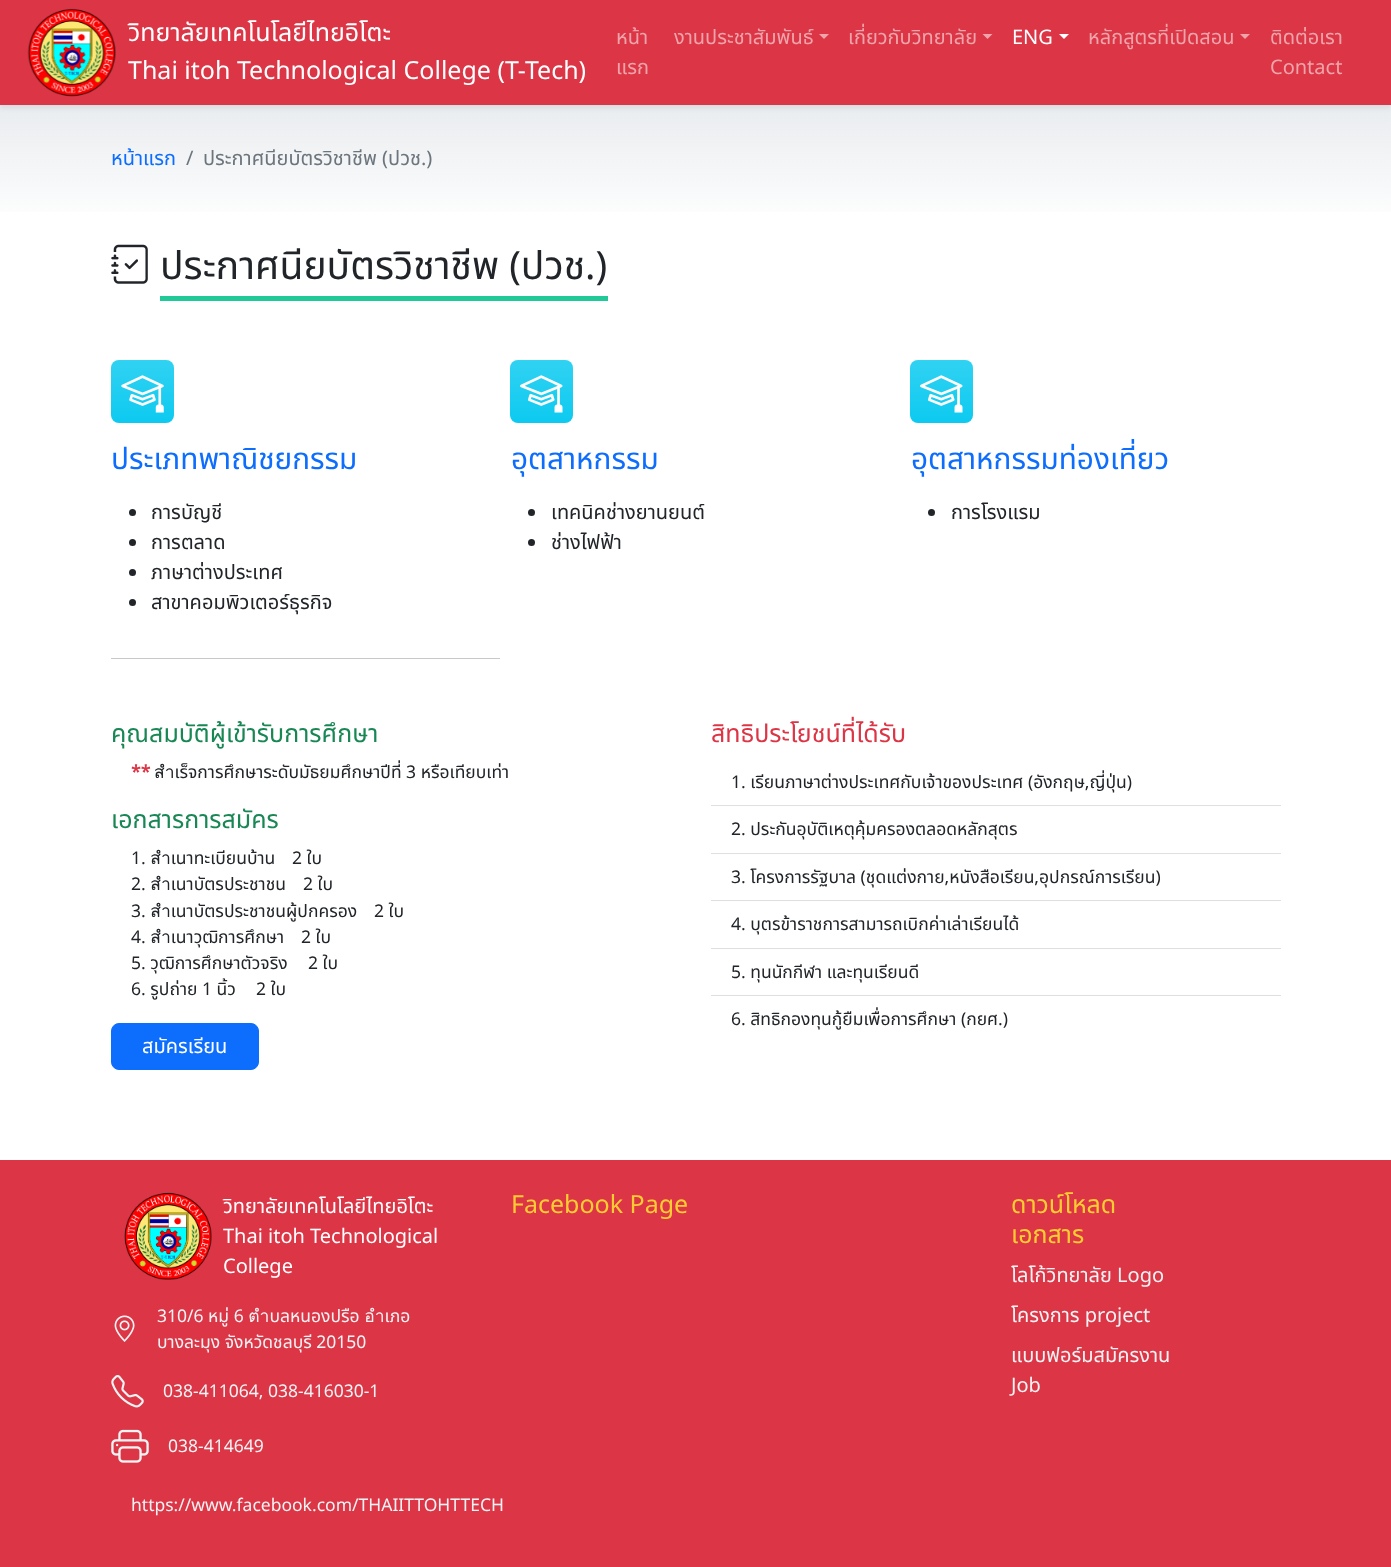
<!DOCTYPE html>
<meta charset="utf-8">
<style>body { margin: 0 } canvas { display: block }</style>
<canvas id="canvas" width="1391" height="1567"></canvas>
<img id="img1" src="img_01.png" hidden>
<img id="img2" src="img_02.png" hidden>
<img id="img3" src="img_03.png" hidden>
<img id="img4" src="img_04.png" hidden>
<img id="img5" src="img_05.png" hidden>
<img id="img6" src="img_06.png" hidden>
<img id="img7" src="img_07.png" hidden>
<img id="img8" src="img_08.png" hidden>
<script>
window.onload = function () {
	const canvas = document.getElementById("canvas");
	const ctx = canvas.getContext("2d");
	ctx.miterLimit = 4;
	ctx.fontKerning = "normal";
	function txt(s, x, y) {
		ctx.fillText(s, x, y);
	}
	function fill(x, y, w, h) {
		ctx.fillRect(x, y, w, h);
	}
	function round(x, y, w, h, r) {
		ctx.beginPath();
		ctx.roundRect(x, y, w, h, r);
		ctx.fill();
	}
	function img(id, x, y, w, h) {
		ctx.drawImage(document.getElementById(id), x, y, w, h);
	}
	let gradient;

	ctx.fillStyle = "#FFFFFF";
	fill(0, 0, 1391, 1567);
	gradient = ctx.createLinearGradient(696, 104, 696, 224);
	gradient.addColorStop(0, "#E9ECEF");
	gradient.addColorStop(0.72, "#F8F9FA");
	gradient.addColorStop(1, "#FFFFFF");
	ctx.fillStyle = gradient;
	fill(0, 105, 1391, 107);
	ctx.fillStyle = "rgba(0, 0, 0, 0.07)";
	ctx.filter = "blur(2.5px)";
	ctx.beginPath();
	ctx.rect(0, 3, 1391, 105);
	ctx.fill();
	ctx.filter = "none";
	ctx.fillStyle = "#DC3545";
	fill(0, 0, 1391, 105);
	img("img1", 27, 8, 89, 89);
	ctx.fillStyle = "#EFA4AB";
	ctx.beginPath();
	ctx.moveTo(819, 34);
	ctx.lineTo(829, 34);
	ctx.lineTo(824, 39);
	ctx.closePath();
	ctx.fill();
	ctx.beginPath();
	ctx.moveTo(982.5, 34);
	ctx.lineTo(992.5, 34);
	ctx.lineTo(987.5, 39);
	ctx.closePath();
	ctx.fill();
	ctx.fillStyle = "#FFFFFF";
	ctx.beginPath();
	ctx.moveTo(1059, 34);
	ctx.lineTo(1069, 34);
	ctx.lineTo(1064, 39);
	ctx.closePath();
	ctx.fill();
	ctx.fillStyle = "#EFA4AB";
	ctx.beginPath();
	ctx.moveTo(1240, 34);
	ctx.lineTo(1250, 34);
	ctx.lineTo(1245, 39);
	ctx.closePath();
	ctx.fill();
	img("img2", 111, 244, 37, 40);
	ctx.fillStyle = "#20C997";
	fill(160, 296, 448, 5);
	ctx.fillStyle = "#0DCAF0";
	round(111, 360, 63, 63, 8);
	gradient = ctx.createLinearGradient(143, 360, 143, 423);
	gradient.addColorStop(0, "rgba(255, 255, 255, 0.15)");
	gradient.addColorStop(1, "rgba(255, 255, 255, 0)");
	ctx.fillStyle = gradient;
	round(111, 360, 63, 63, 8);
	img("img3", 121, 375, 43, 38);
	ctx.fillStyle = "#212529";
	ctx.beginPath();
	ctx.arc(132.5, 512.5, 3.5, 0, Math.PI * 2);
	ctx.fill();
	ctx.beginPath();
	ctx.arc(132.5, 542.5, 3.5, 0, Math.PI * 2);
	ctx.fill();
	ctx.beginPath();
	ctx.arc(132.5, 572.5, 3.5, 0, Math.PI * 2);
	ctx.fill();
	ctx.beginPath();
	ctx.arc(132.5, 602.5, 3.5, 0, Math.PI * 2);
	ctx.fill();
	ctx.fillStyle = "#0DCAF0";
	round(510, 360, 63, 63, 8);
	gradient = ctx.createLinearGradient(541, 360, 541, 423);
	gradient.addColorStop(0, "rgba(255, 255, 255, 0.15)");
	gradient.addColorStop(1, "rgba(255, 255, 255, 0)");
	ctx.fillStyle = gradient;
	round(510, 360, 63, 63, 8);
	img("img4", 520, 375, 43, 38);
	ctx.fillStyle = "#212529";
	ctx.beginPath();
	ctx.arc(531.5, 512.5, 3.5, 0, Math.PI * 2);
	ctx.fill();
	ctx.beginPath();
	ctx.arc(531.5, 542.5, 3.5, 0, Math.PI * 2);
	ctx.fill();
	ctx.fillStyle = "#0DCAF0";
	round(910, 360, 63, 63, 8);
	gradient = ctx.createLinearGradient(941, 360, 941, 423);
	gradient.addColorStop(0, "rgba(255, 255, 255, 0.15)");
	gradient.addColorStop(1, "rgba(255, 255, 255, 0)");
	ctx.fillStyle = gradient;
	round(910, 360, 63, 63, 8);
	img("img4", 920, 375, 43, 38);
	ctx.fillStyle = "#212529";
	ctx.beginPath();
	ctx.arc(931.5, 512.5, 3.5, 0, Math.PI * 2);
	ctx.fill();
	ctx.fillStyle = "#C8C9CA";
	fill(111, 658, 389, 1);
	ctx.fillStyle = "#0D6EFD";
	ctx.beginPath();
	ctx.roundRect(111.5, 1023.5, 147, 46, 7.5);
	ctx.fill();
	ctx.strokeStyle = "#0D6EFD";
	ctx.stroke();
	ctx.fillStyle = "#DFDFDF";
	fill(711, 805, 570, 1);
	fill(711, 853, 570, 1);
	fill(711, 900, 570, 1);
	fill(711, 948, 570, 1);
	fill(711, 995, 570, 1);
	ctx.fillStyle = "#DC3545";
	fill(0, 1160, 1391, 407);
	img("img5", 124, 1192, 88, 88);
	img("img6", 114, 1315, 21, 27);
	img("img7", 111, 1375, 33, 33);
	img("img8", 111, 1429, 38, 34);
	ctx.font = "25px Noto Sans Thai";
	ctx.fillStyle = "#FFFFFF";
	txt("วิทยาลัยเทคโนโลยีไทยอิโตะ", 128, 41);
	txt("Thai itoh Technological College (T-Tech)", 128, 79);
	ctx.font = "20px Noto Sans Thai";
	ctx.fillStyle = "#EFA4AB";
	txt("หน้า", 616, 44);
	txt("แรก", 616, 74);
	txt("งานประชาสัมพันธ์", 674, 44);
	txt("เกี่ยวกับวิทยาลัย", 848, 44);
	ctx.fillStyle = "#FFFFFF";
	txt("ENG", 1012, 44);
	ctx.fillStyle = "#EFA4AB";
	txt("หลักสูตรที่เปิดสอน", 1088, 44);
	txt("ติดต่อเรา", 1270, 44);
	txt("Contact", 1270, 74);
	ctx.fillStyle = "#0D6EFD";
	txt("หน้าแรก", 111, 165);
	ctx.fillStyle = "#6C757D";
	txt("/", 186, 165);
	txt("ประกาศนียบัตรวิชาชีพ (ปวช.)", 203, 165);
	ctx.font = "39px Noto Sans Thai";
	ctx.fillStyle = "#212529";
	txt("ประกาศนียบัตรวิชาชีพ (ปวช.)", 160, 279);
	ctx.font = "29.75px Noto Sans Thai";
	ctx.fillStyle = "#0D6EFD";
	txt("ประเภทพาณิชยกรรม", 111, 469);
	ctx.font = "20px Noto Sans Thai";
	ctx.fillStyle = "#212529";
	txt("การบัญชี", 151, 519);
	txt("การตลาด", 151, 549);
	txt("ภาษาต่างประเทศ", 151, 579);
	txt("สาขาคอมพิวเตอร์ธุรกิจ", 151, 609);
	ctx.font = "29.75px Noto Sans Thai";
	ctx.fillStyle = "#0D6EFD";
	txt("อุตสาหกรรม", 511, 469);
	ctx.font = "20px Noto Sans Thai";
	ctx.fillStyle = "#212529";
	txt("เทคนิคช่างยานยนต์", 551, 519);
	txt("ช่างไฟฟ้า", 551, 549);
	ctx.font = "29.75px Noto Sans Thai";
	ctx.fillStyle = "#0D6EFD";
	txt("อุตสาหกรรมท่องเที่ยว", 911, 469);
	ctx.font = "20px Noto Sans Thai";
	ctx.fillStyle = "#212529";
	txt("การโรงแรม", 951, 519);
	ctx.font = "25px Noto Sans Thai";
	ctx.fillStyle = "#198754";
	txt("คุณสมบัติผู้เข้ารับการศึกษา", 111, 742);
	ctx.font = "bold 17.5px Noto Sans Thai";
	ctx.fillStyle = "#DC3545";
	txt("**", 131, 778);
	ctx.font = "17.5px Noto Sans Thai";
	ctx.fillStyle = "#212529";
	txt("สำเร็จการศึกษาระดับมัธยมศึกษาปีที่ 3 หรือเทียบเท่า", 154, 778);
	ctx.font = "25px Noto Sans Thai";
	ctx.fillStyle = "#198754";
	txt("เอกสารการสมัคร", 111, 828);
	ctx.font = "17.5px Noto Sans Thai";
	ctx.fillStyle = "#212529";
	txt("1. สำเนาทะเบียนบ้าน", 131, 864);
	txt("2 ใบ", 292, 864);
	txt("2. สำเนาบัตรประชาชน", 131, 890);
	txt("2 ใบ", 303, 890);
	txt("3. สำเนาบัตรประชาชนผู้ปกครอง", 131, 917);
	txt("2 ใบ", 374, 917);
	txt("4. สำเนาวุฒิการศึกษา", 131, 943);
	txt("2 ใบ", 301, 943);
	txt("5. วุฒิการศึกษาตัวจริง", 131, 969);
	txt("2 ใบ", 308, 969);
	txt("6. รูปถ่าย 1 นิ้ว", 131, 995);
	txt("2 ใบ", 256, 995);
	ctx.font = "20px Noto Sans Thai";
	ctx.fillStyle = "#FFFFFF";
	txt("สมัครเรียน", 142, 1053);
	ctx.font = "25px Noto Sans Thai";
	ctx.fillStyle = "#DC3545";
	txt("สิทธิประโยชน์ที่ได้รับ", 711, 742);
	ctx.font = "17.5px Noto Sans Thai";
	ctx.fillStyle = "#212529";
	txt("1. เรียนภาษาต่างประเทศกับเจ้าของประเทศ (อังกฤษ,ญี่ปุ่น)", 731, 788);
	txt("2. ประกันอุบัติเหตุคุ้มครองตลอดหลักสุตร", 731, 835);
	txt("3. โครงการรัฐบาล (ชุดแต่งกาย,หนังสือเรียน,อุปกรณ์การเรียน)", 731, 883);
	txt("4. บุตรข้าราชการสามารถเบิกค่าเล่าเรียนได้", 731, 930);
	txt("5. ทุนนักกีฬา และทุนเรียนดี", 731, 978);
	txt("6. สิทธิกองทุนกู้ยืมเพื่อการศึกษา (กยศ.)", 731, 1025);
	ctx.font = "20px Noto Sans Thai";
	ctx.fillStyle = "#FFFFFF";
	txt("วิทยาลัยเทคโนโลยีไทยอิโตะ", 223, 1213);
	txt("Thai itoh Technological", 223, 1243);
	txt("College", 223, 1273);
	ctx.font = "17.5px Noto Sans Thai";
	ctx.fillStyle = "#F2F3F4";
	txt("310/6 หมู่ 6 ตำบลหนองปรือ อำเภอ", 157, 1322);
	txt("บางละมุง จังหวัดชลบุรี 20150", 157, 1348);
	txt("038-411064, 038-416030-1", 163, 1397);
	txt("038-414649", 168, 1452);
	txt("https://www.facebook.com/THAIITTOHTTECH", 131, 1511);
	ctx.font = "25px Noto Sans Thai";
	ctx.fillStyle = "#FFCC32";
	txt("Facebook Page", 511, 1213);
	txt("ดาวน์โหลด", 1011, 1213);
	txt("เอกสาร", 1011, 1243);
	ctx.font = "20px Noto Sans Thai";
	ctx.fillStyle = "#F2F3F4";
	txt("โลโก้วิทยาลัย Logo", 1011, 1282);
	txt("โครงการ project", 1011, 1322);
	txt("แบบฟอร์มสมัครงาน", 1011, 1362);
	txt("Job", 1011, 1392);
};
</script>
